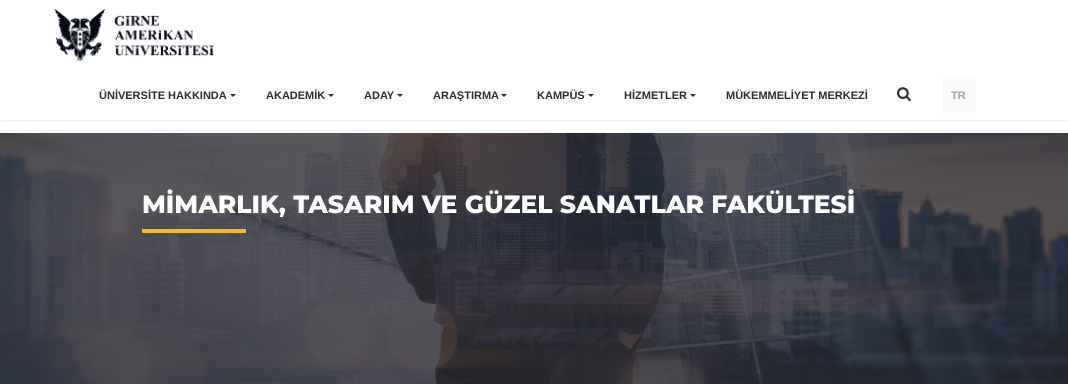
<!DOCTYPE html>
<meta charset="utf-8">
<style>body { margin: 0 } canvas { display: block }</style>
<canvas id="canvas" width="1068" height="384"></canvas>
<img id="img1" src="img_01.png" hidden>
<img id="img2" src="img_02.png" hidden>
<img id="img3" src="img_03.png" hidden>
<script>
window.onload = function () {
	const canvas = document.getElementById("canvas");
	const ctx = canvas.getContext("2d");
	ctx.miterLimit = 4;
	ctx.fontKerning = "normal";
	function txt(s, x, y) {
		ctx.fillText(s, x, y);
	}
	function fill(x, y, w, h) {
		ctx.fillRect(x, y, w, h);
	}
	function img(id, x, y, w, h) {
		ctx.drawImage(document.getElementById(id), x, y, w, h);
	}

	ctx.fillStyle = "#FFFFFF";
	fill(0, 0, 1068, 384);
	ctx.save();
	ctx.beginPath();
	ctx.rect(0, 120, 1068, 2);
	ctx.clip();
	ctx.fillStyle = "rgba(0, 0, 0, 0.1)";
	ctx.filter = "blur(1.5px)";
	ctx.beginPath();
	ctx.rect(0, 1, 1068, 120);
	ctx.fill();
	ctx.filter = "none";
	ctx.restore();
	img("img1", 54, 9, 160, 53);
	ctx.fillStyle = "#2B2D36";
	ctx.beginPath();
	ctx.moveTo(230, 94);
	ctx.lineTo(236, 94);
	ctx.lineTo(233, 97);
	ctx.closePath();
	ctx.fill();
	ctx.beginPath();
	ctx.moveTo(328, 94);
	ctx.lineTo(334, 94);
	ctx.lineTo(331, 97);
	ctx.closePath();
	ctx.fill();
	ctx.beginPath();
	ctx.moveTo(397, 94);
	ctx.lineTo(403, 94);
	ctx.lineTo(400, 97);
	ctx.closePath();
	ctx.fill();
	ctx.beginPath();
	ctx.moveTo(501, 94);
	ctx.lineTo(507, 94);
	ctx.lineTo(504, 97);
	ctx.closePath();
	ctx.fill();
	ctx.beginPath();
	ctx.moveTo(588, 94);
	ctx.lineTo(594, 94);
	ctx.lineTo(591, 97);
	ctx.closePath();
	ctx.fill();
	ctx.beginPath();
	ctx.moveTo(690, 94);
	ctx.lineTo(696, 94);
	ctx.lineTo(693, 97);
	ctx.closePath();
	ctx.fill();
	img("img2", 897, 87, 14, 15);
	ctx.fillStyle = "#FAFAFB";
	fill(941, 77, 35, 36);
	img("img3", 0, 133, 1068, 251);
	ctx.fillStyle = "#FCBB17";
	fill(142, 229, 104, 4);
	ctx.font = "bold 11px Liberation Sans";
	ctx.fillStyle = "#2B2D36";
	txt("ÜNİVERSİTE HAKKINDA", 99, 99);
	txt("AKADEMİK", 266, 99);
	txt("ADAY", 364, 99);
	txt("ARAŞTIRMA", 433, 99);
	txt("KAMPÜS", 537, 99);
	txt("HİZMETLER", 624, 99);
	txt("MÜKEMMELİYET MERKEZİ", 726, 99);
	ctx.fillStyle = "#A1A3AB";
	txt("TR", 951, 99);
	ctx.font = "800 25px Montserrat";
	ctx.fillStyle = "#FFFFFF";
	txt("MİMARLIK, TASARIM VE GÜZEL SANATLAR FAKÜLTESİ", 142, 213);
};
</script>
